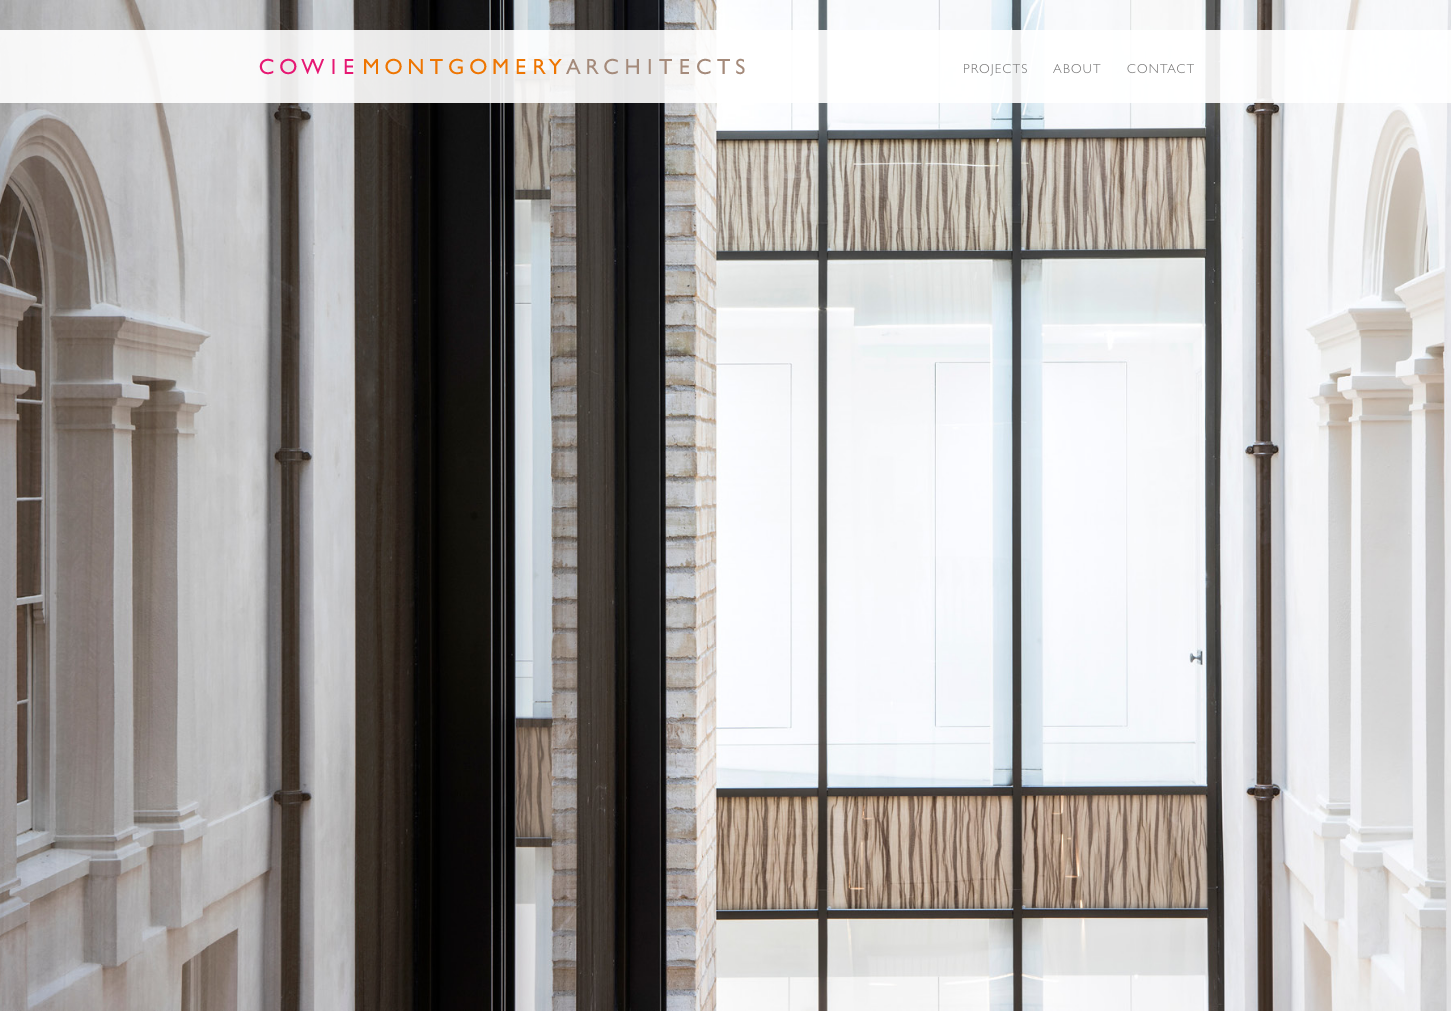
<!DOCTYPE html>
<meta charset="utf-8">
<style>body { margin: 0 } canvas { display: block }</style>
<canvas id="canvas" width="1451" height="1011"></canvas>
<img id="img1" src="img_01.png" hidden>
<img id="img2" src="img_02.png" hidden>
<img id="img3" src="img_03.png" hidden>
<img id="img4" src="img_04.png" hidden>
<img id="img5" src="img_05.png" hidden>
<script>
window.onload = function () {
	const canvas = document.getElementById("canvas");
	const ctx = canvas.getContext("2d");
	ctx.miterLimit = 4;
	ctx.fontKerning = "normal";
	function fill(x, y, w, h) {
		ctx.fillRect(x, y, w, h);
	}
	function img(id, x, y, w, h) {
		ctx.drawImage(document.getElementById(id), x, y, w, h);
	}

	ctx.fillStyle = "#FFFFFF";
	fill(0, 0, 1451, 1011);
	img("img1", 0, 0, 1451, 1011);
	ctx.fillStyle = "rgba(255, 255, 255, 0.9)";
	fill(0, 30, 1451, 73);
	img("img2", 259, 58, 486, 17);
	img("img3", 964, 64, 63, 12);
	img("img4", 1053, 64, 48, 10);
	img("img5", 1127, 64, 67, 10);
};
</script>
